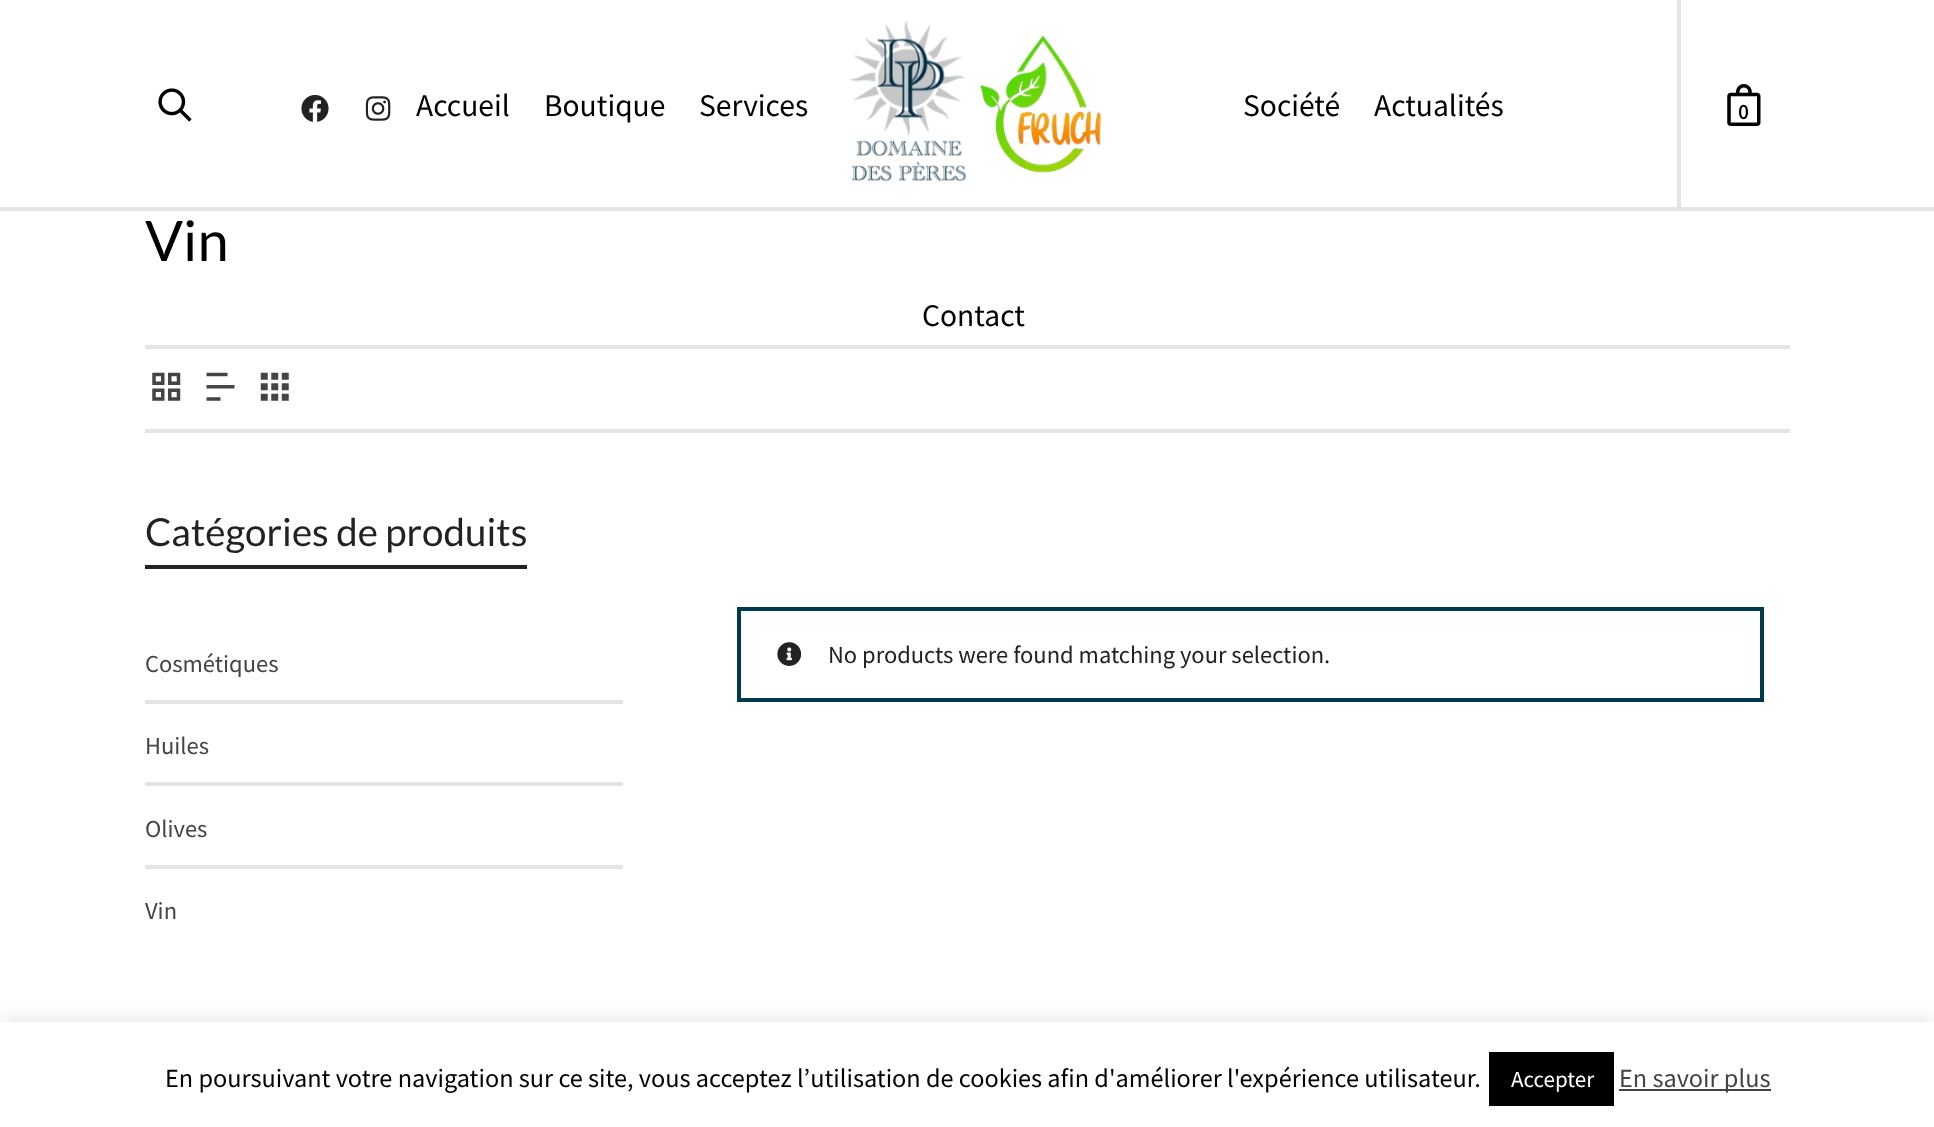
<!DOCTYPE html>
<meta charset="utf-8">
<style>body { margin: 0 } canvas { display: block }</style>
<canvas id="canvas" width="1934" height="1127"></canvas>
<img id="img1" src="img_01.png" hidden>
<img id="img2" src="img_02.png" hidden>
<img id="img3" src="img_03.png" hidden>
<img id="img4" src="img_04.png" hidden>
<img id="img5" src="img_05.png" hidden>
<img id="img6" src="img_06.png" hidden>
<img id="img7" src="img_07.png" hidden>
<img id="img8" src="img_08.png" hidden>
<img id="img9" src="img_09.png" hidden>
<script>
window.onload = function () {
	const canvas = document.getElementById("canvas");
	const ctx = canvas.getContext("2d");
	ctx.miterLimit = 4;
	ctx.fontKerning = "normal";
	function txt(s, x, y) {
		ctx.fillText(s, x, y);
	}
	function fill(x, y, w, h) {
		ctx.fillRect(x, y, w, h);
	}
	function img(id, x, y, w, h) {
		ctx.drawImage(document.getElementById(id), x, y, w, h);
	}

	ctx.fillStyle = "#FFFFFF";
	fill(0, 0, 1934, 1127);
	ctx.fillStyle = "#E4E4E4";
	fill(0, 207, 1934, 4);
	img("img1", 158, 88, 34, 34);
	img("img2", 301, 95, 28, 27);
	img("img3", 365, 96, 26, 25);
	img("img4", 849, 20, 253, 162);
	fill(1677, 0, 4, 210);
	img("img5", 1727, 84, 34, 42);
	fill(145, 345, 1645, 4);
	fill(145, 429, 1645, 4);
	img("img6", 152, 372, 29, 29);
	img("img7", 206, 372, 29, 29);
	img("img8", 260, 372, 29, 29);
	ctx.fillStyle = "#222222";
	fill(145, 565, 382, 4);
	ctx.fillStyle = "#E4E4E4";
	fill(145, 700, 478, 4);
	fill(145, 782, 478, 4);
	fill(145, 865, 478, 4);
	ctx.strokeStyle = "#003A4F";
	ctx.lineWidth = 4;
	ctx.strokeRect(739, 609, 1023, 91);
	img("img9", 777, 642, 25, 24);
	ctx.fillStyle = "rgba(172, 171, 171, 0.3)";
	ctx.filter = "blur(9px)";
	ctx.beginPath();
	ctx.rect(0, 1020, 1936, 105);
	ctx.fill();
	ctx.filter = "none";
	ctx.fillStyle = "#FFFFFF";
	fill(0, 1022, 1934, 105);
	ctx.fillStyle = "#000000";
	fill(1489, 1052, 125, 54);
	ctx.fillStyle = "#444444";
	fill(1619, 1089, 152, 2);
	ctx.font = "31.5px Source Sans Pro";
	ctx.fillStyle = "#000000";
	txt("Accueil", 416, 116);
	txt("Boutique", 544, 116);
	txt("Services", 699, 116);
	txt("Société", 1243, 116);
	txt("Actualités", 1374, 116);
	txt("Contact", 922, 326);
	ctx.font = "bold 21px Source Sans Pro";
	txt("0", 1738, 119);
	ctx.font = "56px Lato";
	txt("Vin", 145, 261);
	ctx.font = "38.5px Lato";
	ctx.fillStyle = "#222222";
	txt("Catégories de produits", 145, 546);
	ctx.font = "24.5px Source Sans Pro";
	ctx.fillStyle = "#444444";
	txt("Cosmétiques", 145, 672);
	txt("Huiles", 145, 754);
	txt("Olives", 145, 837);
	txt("Vin", 145, 919);
	ctx.fillStyle = "#222222";
	txt("No products were found matching your selection.", 828, 663);
	ctx.font = "26.25px Source Sans Pro";
	ctx.fillStyle = "#000000";
	txt("En poursuivant votre navigation sur ce site, vous acceptez l’utilisation de cookies afin d'améliorer l'expérience utilisateur.", 165, 1087);
	ctx.font = "23px Source Sans Pro";
	ctx.fillStyle = "#FFFFFF";
	txt("Accepter", 1511, 1087);
	ctx.font = "26.25px Source Sans Pro";
	ctx.fillStyle = "#444444";
	txt("En savoir plus", 1619, 1087);
};
</script>
